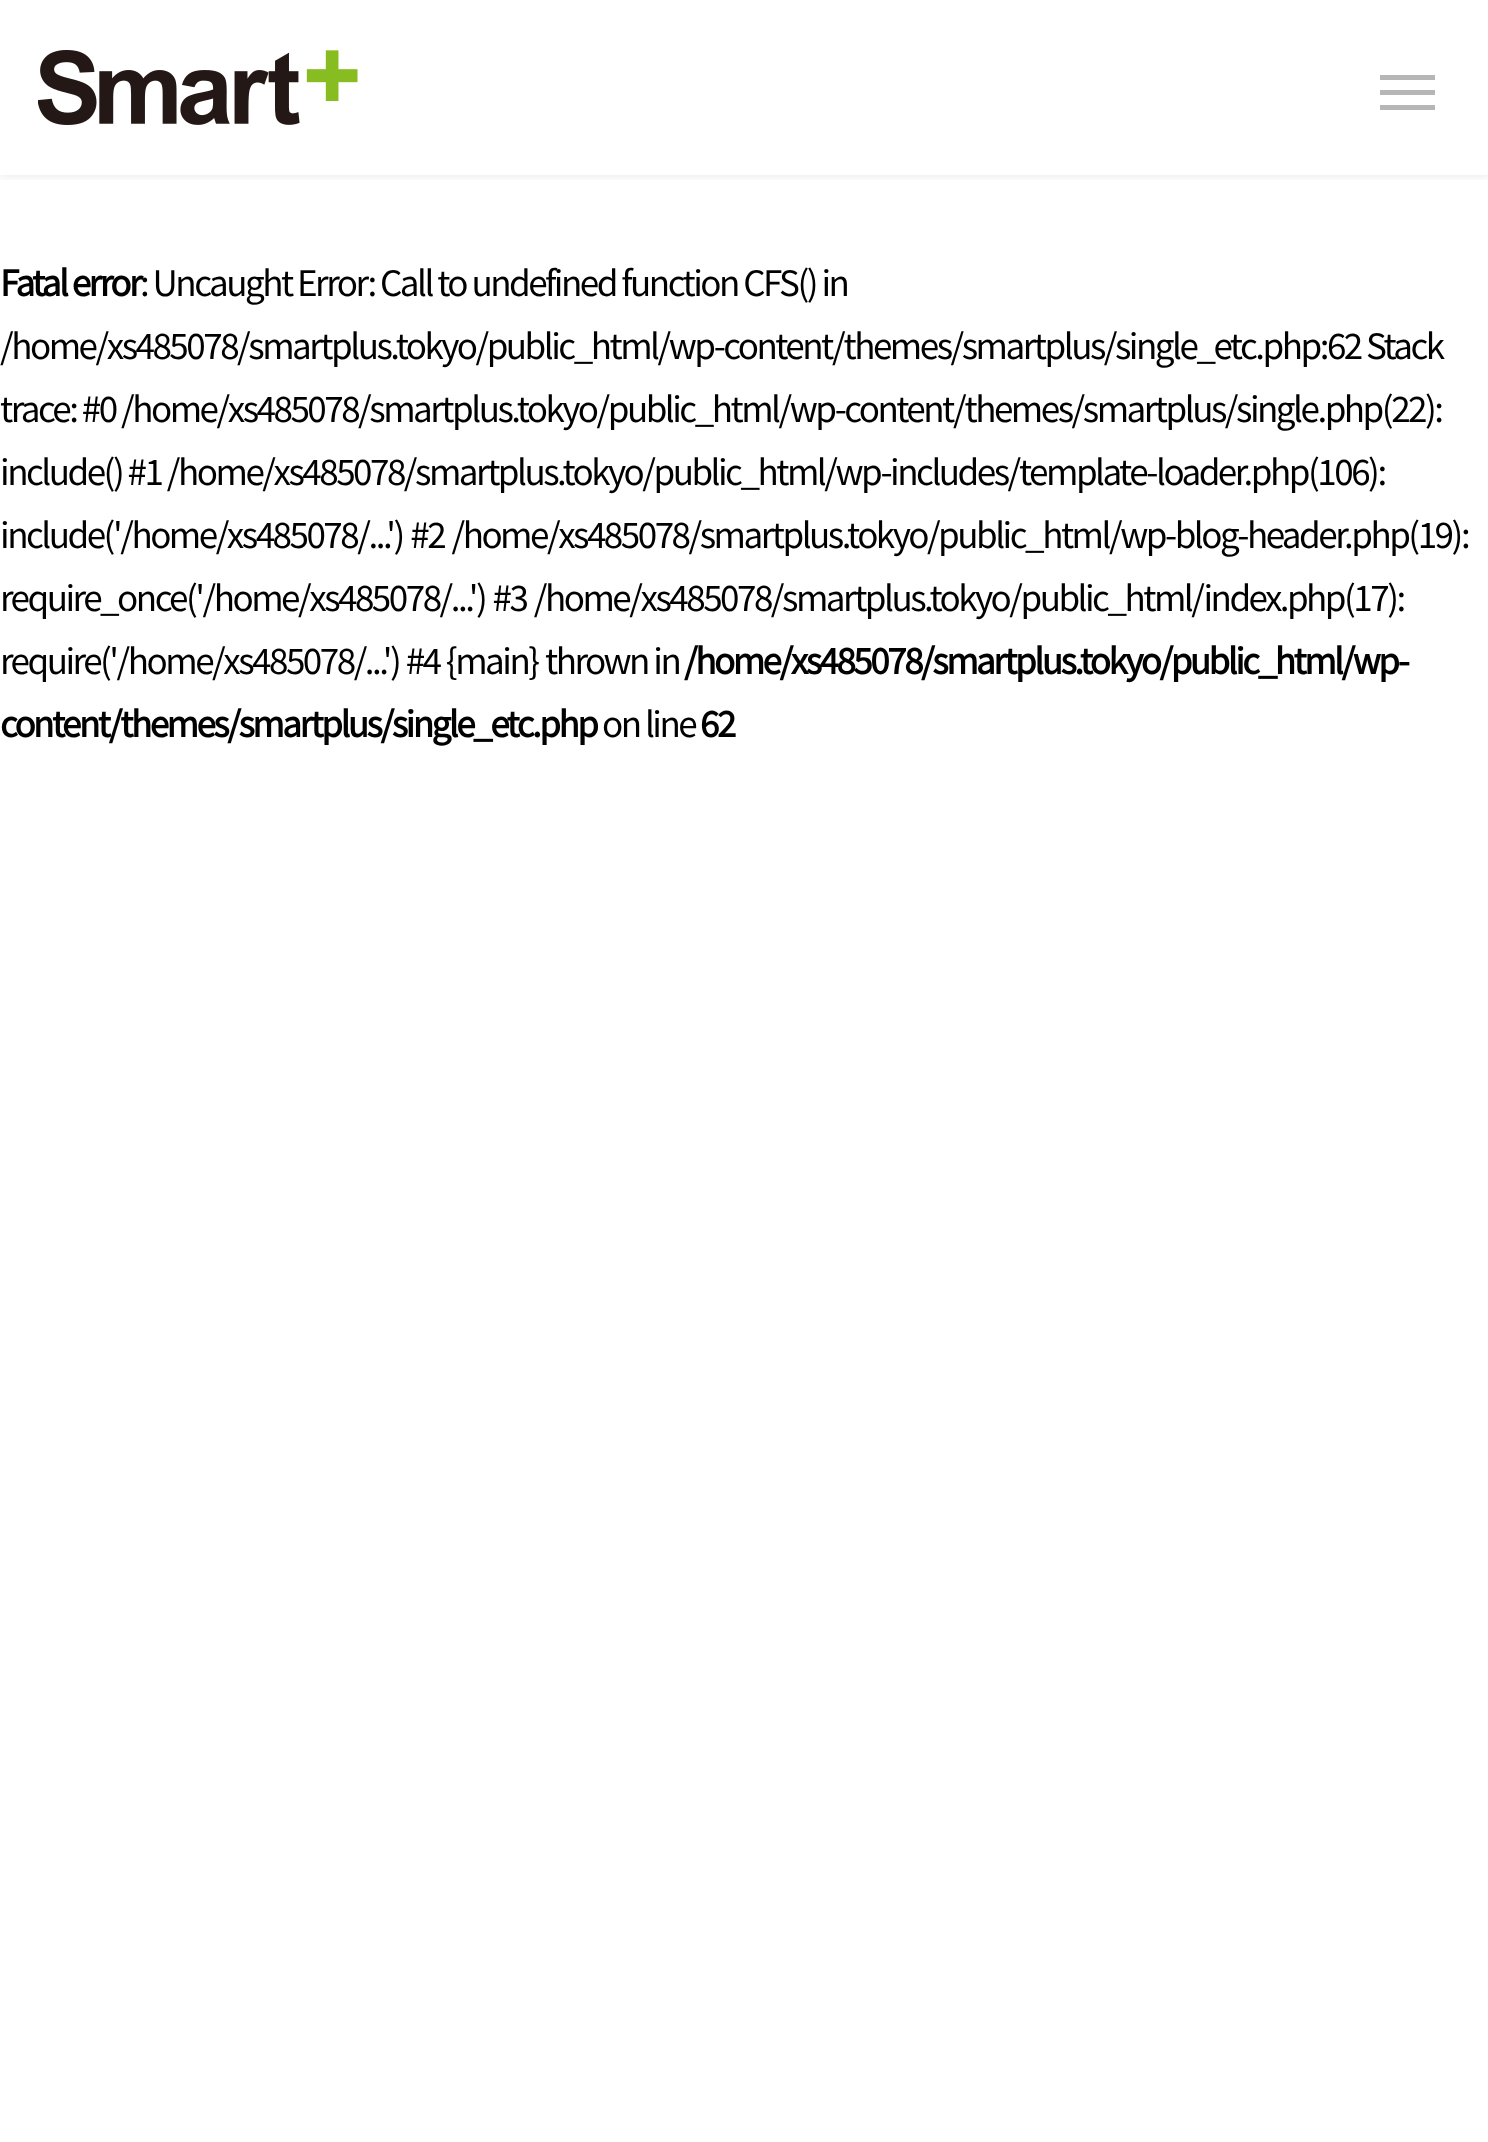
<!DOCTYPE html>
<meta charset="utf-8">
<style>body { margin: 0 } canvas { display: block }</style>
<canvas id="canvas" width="1488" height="2142"></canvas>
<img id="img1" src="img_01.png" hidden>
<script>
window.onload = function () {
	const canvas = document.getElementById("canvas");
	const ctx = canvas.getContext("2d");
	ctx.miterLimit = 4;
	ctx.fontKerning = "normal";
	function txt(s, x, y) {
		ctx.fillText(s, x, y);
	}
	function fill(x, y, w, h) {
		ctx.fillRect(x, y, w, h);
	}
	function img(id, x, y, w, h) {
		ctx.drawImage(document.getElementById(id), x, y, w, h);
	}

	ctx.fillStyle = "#FFFFFF";
	fill(0, 0, 1488, 2142);
	ctx.save();
	ctx.beginPath();
	ctx.rect(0, 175, 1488, 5);
	ctx.clip();
	ctx.fillStyle = "rgba(0, 0, 0, 0.1)";
	ctx.filter = "blur(6px)";
	ctx.beginPath();
	ctx.rect(0, 0, 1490, 175);
	ctx.fill();
	ctx.filter = "none";
	ctx.restore();
	img("img1", 38, 50, 320, 75);
	ctx.fillStyle = "#B6B6B6";
	fill(1380, 75, 55, 5);
	fill(1380, 90, 55, 5);
	fill(1380, 105, 55, 5);
	ctx.letterSpacing = "-2.5px";
	ctx.font = "bold 35px Noto Sans JP";
	ctx.fillStyle = "#000000";
	txt("Fatal error", 0, 296);
	ctx.font = "100 35px Noto Sans JP";
	txt(": Uncaught Error: Call to undefined function CFS() in", 140, 296);
	txt("/home/xs485078/smartplus.tokyo/public_html/wp-content/themes/smartplus/single_etc.php:62 Stack", 0, 359);
	txt("trace: #0 /home/xs485078/smartplus.tokyo/public_html/wp-content/themes/smartplus/single.php(22):", 0, 422);
	txt("include() #1 /home/xs485078/smartplus.tokyo/public_html/wp-includes/template-loader.php(106):", 0, 485);
	ctx.wordSpacing = "2px";
	txt("include('/home/xs485078/...') #2 /home/xs485078/smartplus.tokyo/public_html/wp-blog-header.php(19):", 0, 548);
	txt("require_once('/home/xs485078/...') #3 /home/xs485078/smartplus.tokyo/public_html/index.php(17):", 0, 611);
	ctx.wordSpacing = "1px";
	txt("require('/home/xs485078/...') #4 {main}", 0, 674);
	ctx.wordSpacing = "0px";
	txt("thrown in", 545, 674);
	ctx.font = "bold 35px Noto Sans JP";
	txt("/home/xs485078/smartplus.tokyo/public_html/wp-", 684, 674);
	txt("content/themes/smartplus/single_etc.php", 0, 737);
	ctx.font = "100 35px Noto Sans JP";
	txt("on line", 602, 737);
	ctx.font = "bold 35px Noto Sans JP";
	txt("62", 700, 737);
};
</script>
